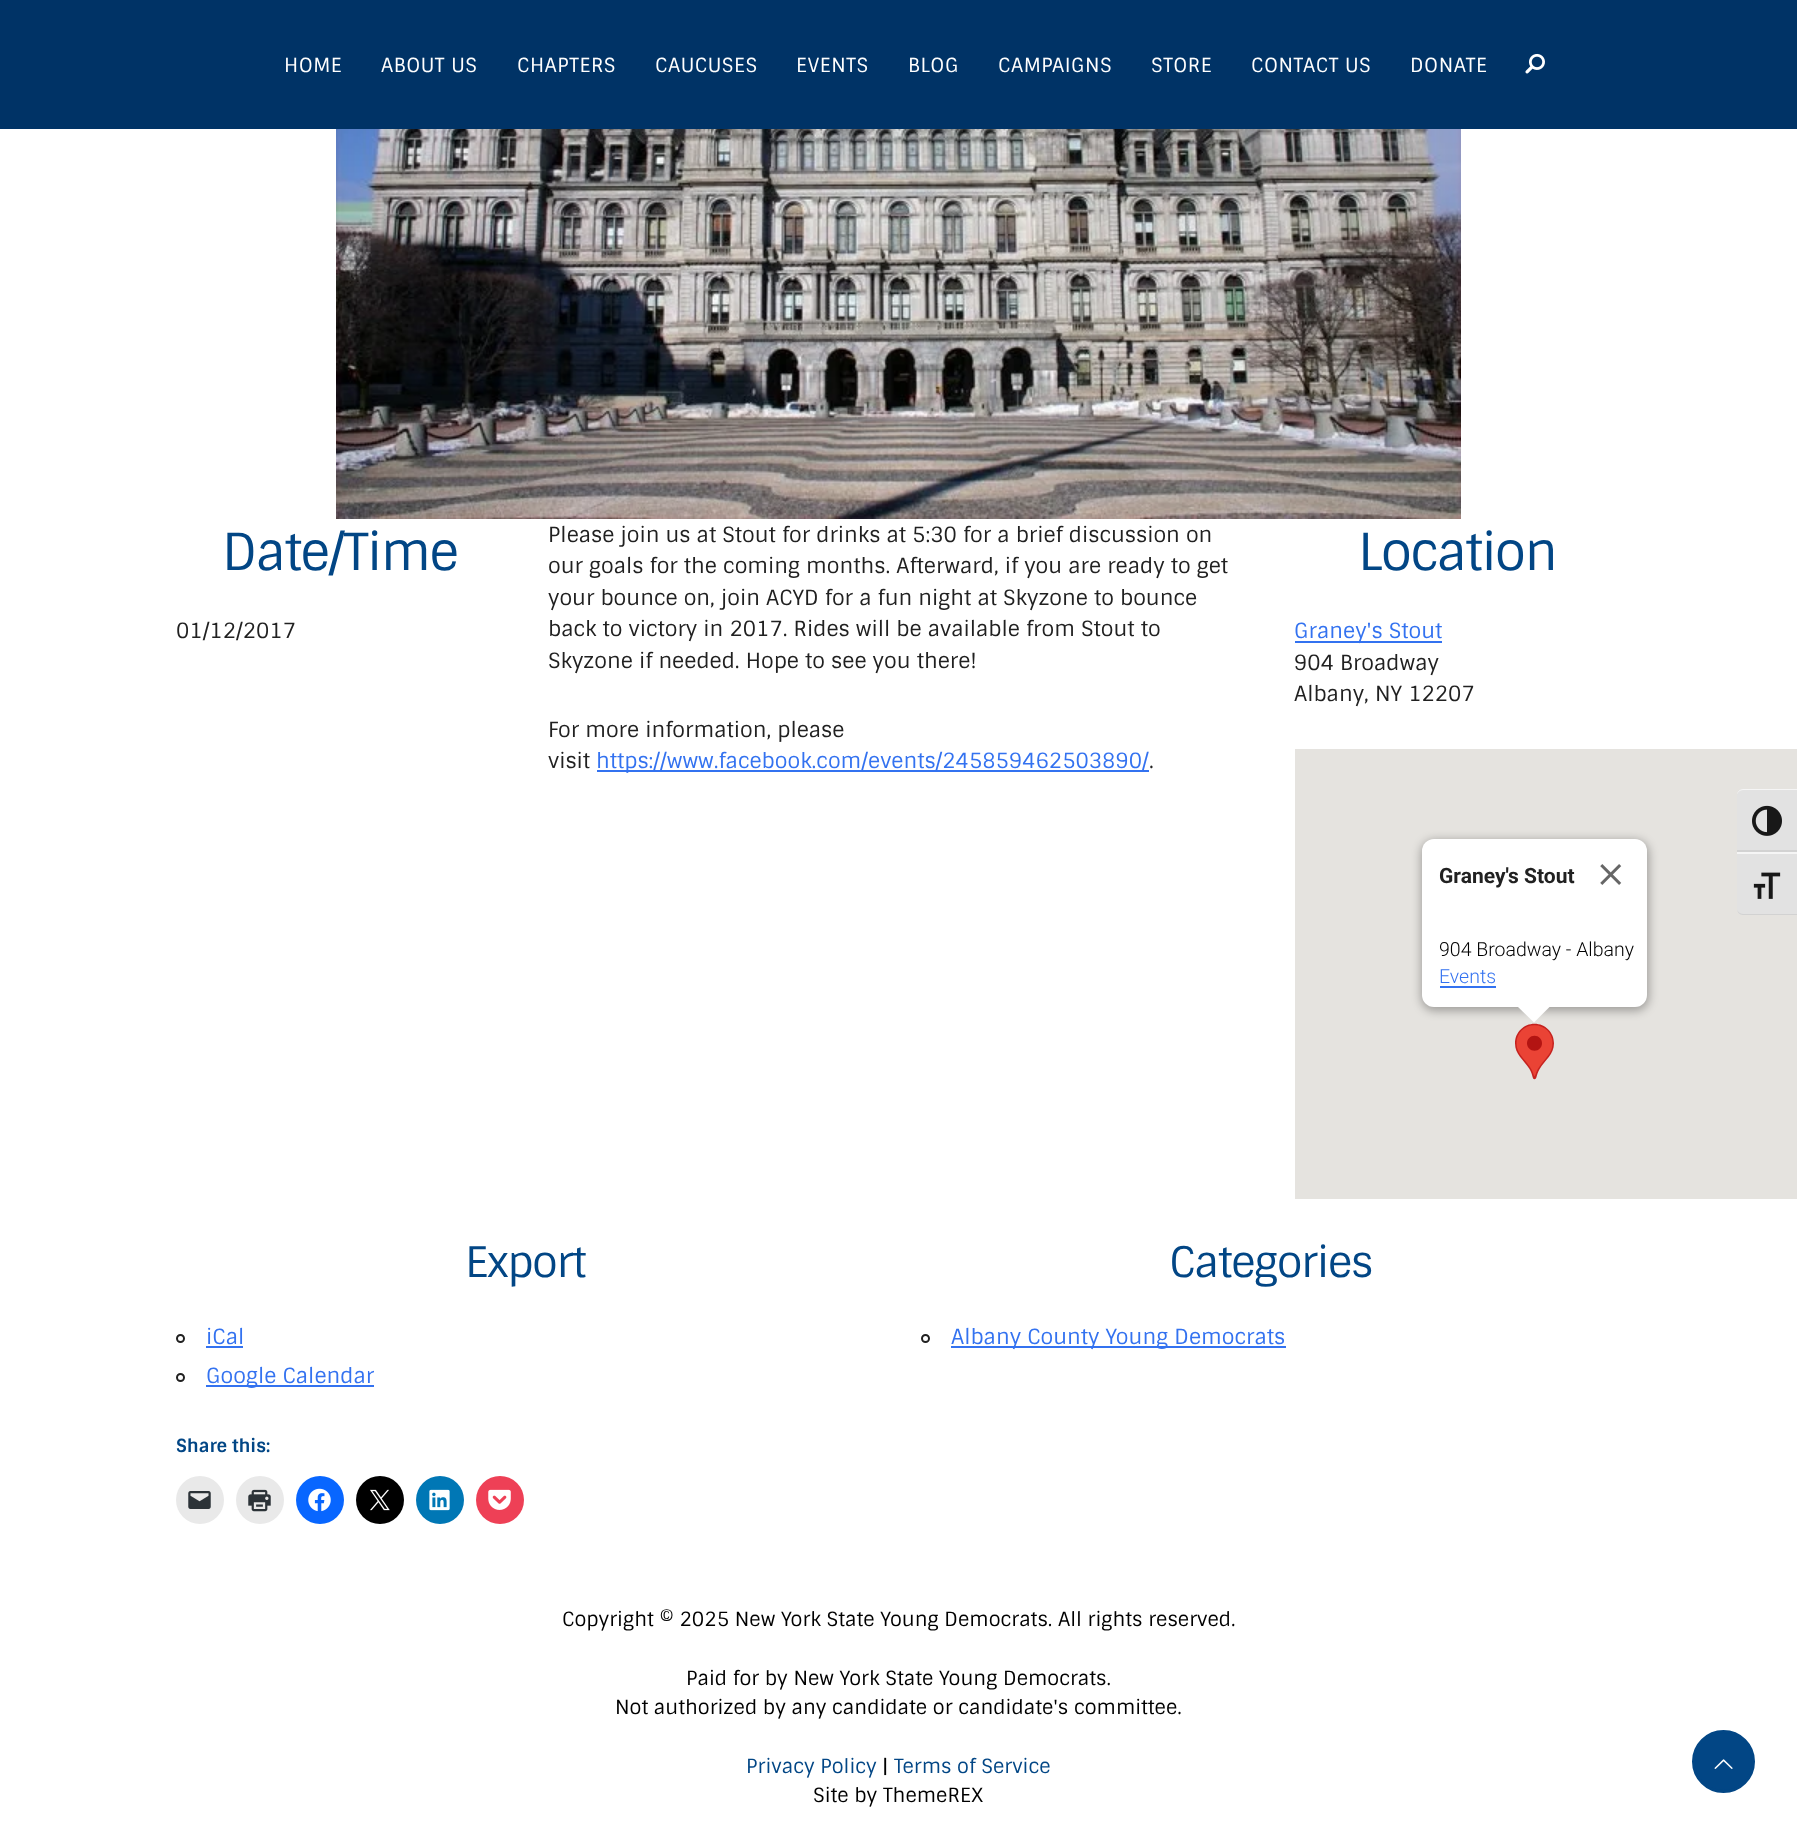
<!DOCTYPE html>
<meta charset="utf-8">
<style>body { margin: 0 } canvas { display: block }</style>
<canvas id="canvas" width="1797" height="1834"></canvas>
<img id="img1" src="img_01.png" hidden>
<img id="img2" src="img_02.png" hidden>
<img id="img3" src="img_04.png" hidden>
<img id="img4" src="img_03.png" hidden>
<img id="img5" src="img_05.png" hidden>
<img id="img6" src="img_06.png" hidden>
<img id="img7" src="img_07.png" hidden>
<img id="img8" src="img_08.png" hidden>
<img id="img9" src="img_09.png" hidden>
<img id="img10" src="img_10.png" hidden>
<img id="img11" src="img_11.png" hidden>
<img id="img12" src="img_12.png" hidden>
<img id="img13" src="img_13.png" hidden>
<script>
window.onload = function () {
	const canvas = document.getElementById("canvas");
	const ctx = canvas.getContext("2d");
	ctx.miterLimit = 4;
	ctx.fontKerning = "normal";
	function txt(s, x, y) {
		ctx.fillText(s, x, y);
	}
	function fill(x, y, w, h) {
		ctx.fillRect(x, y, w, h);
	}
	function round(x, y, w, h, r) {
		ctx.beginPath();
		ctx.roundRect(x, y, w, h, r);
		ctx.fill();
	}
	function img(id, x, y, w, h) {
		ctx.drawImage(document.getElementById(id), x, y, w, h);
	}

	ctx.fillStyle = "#FFFFFF";
	fill(0, 0, 1797, 1834);
	ctx.fillStyle = "#003366";
	fill(0, 0, 1797, 129);
	img("img1", 1525, 53, 20, 21);
	img("img2", 336, 129, 1125, 390);
	ctx.fillStyle = "#3372F0";
	fill(597, 770, 552, 2);
	fill(1295, 641, 147, 2);
	ctx.fillStyle = "#E5E3DF";
	fill(1295, 749, 502, 450);
	img("img3", 1515, 1023, 39, 57);
	ctx.fillStyle = "rgba(0, 0, 0, 0.3)";
	ctx.filter = "blur(5px)";
	ctx.beginPath();
	ctx.roundRect(1421, 840, 228, 171, 14);
	ctx.fill();
	ctx.filter = "none";
	ctx.fillStyle = "#FFFFFF";
	round(1422, 839, 225, 168, 12);
	img("img4", 1600, 864, 22, 21);
	ctx.fillStyle = "#3372F0";
	fill(1440, 986, 56, 2);
	ctx.fillStyle = "#FFFFFF";
	ctx.beginPath();
	ctx.moveTo(1517, 1005);
	ctx.lineTo(1517, 1006);
	ctx.lineTo(1534, 1022.5);
	ctx.lineTo(1551.5, 1005);
	ctx.closePath();
	ctx.fill();
	ctx.beginPath();
	ctx.arc(180.5, 1338.5, 3.5, 0, Math.PI * 2);
	ctx.strokeStyle = "#212121";
	ctx.lineWidth = 2;
	ctx.stroke();
	ctx.fillStyle = "#3372F0";
	fill(206, 1346, 37, 2);
	ctx.beginPath();
	ctx.arc(180.5, 1377.5, 3.5, 0, Math.PI * 2);
	ctx.stroke();
	fill(206, 1385, 168, 2);
	ctx.beginPath();
	ctx.arc(925.5, 1338.5, 3.5, 0, Math.PI * 2);
	ctx.stroke();
	fill(951, 1346, 335, 2);
	ctx.fillStyle = "#E9E9E9";
	ctx.beginPath();
	ctx.arc(200, 1500, 24, 0, Math.PI * 2);
	ctx.fill();
	img("img5", 188, 1491, 23, 18);
	ctx.beginPath();
	ctx.arc(260, 1500, 24, 0, Math.PI * 2);
	ctx.fill();
	img("img6", 248, 1489, 23, 23);
	ctx.fillStyle = "#0866FF";
	ctx.beginPath();
	ctx.arc(320, 1500, 24, 0, Math.PI * 2);
	ctx.fill();
	img("img7", 308, 1488, 23, 24);
	ctx.fillStyle = "#000000";
	ctx.beginPath();
	ctx.arc(380, 1500, 24, 0, Math.PI * 2);
	ctx.fill();
	img("img8", 370, 1489, 20, 22);
	ctx.fillStyle = "#0077B5";
	ctx.beginPath();
	ctx.arc(440, 1500, 24, 0, Math.PI * 2);
	ctx.fill();
	img("img9", 429, 1489, 21, 22);
	ctx.fillStyle = "#EE4056";
	ctx.beginPath();
	ctx.arc(500, 1500, 24, 0, Math.PI * 2);
	ctx.fill();
	img("img10", 488, 1489, 23, 21);
	ctx.fillStyle = "#E2E2E2";
	ctx.beginPath();
	ctx.roundRect(1737, 789, 60, 63, [6, 0, 0, 0]);
	ctx.fill();
	ctx.fillStyle = "#F5F5F5";
	ctx.beginPath();
	ctx.moveTo(1743, 790);
	ctx.lineTo(1797, 790);
	ctx.lineTo(1797, 789);
	ctx.lineTo(1743, 789);
	ctx.bezierCurveTo(1740, 789, 1737, 792, 1737, 795);
	ctx.bezierCurveTo(1737, 793, 1740, 790, 1743, 790);
	ctx.closePath();
	ctx.fill();
	ctx.fillStyle = "#D2D2D2";
	fill(1737, 850, 60, 2);
	img("img11", 1752, 805, 30, 31);
	ctx.fillStyle = "#E2E2E2";
	ctx.beginPath();
	ctx.roundRect(1737, 852, 60, 63, [0, 0, 0, 6]);
	ctx.fill();
	ctx.fillStyle = "#F5F5F5";
	fill(1737, 852, 60, 2);
	ctx.fillStyle = "#D2D2D2";
	ctx.beginPath();
	ctx.moveTo(1797, 915);
	ctx.lineTo(1797, 914);
	ctx.lineTo(1743, 914);
	ctx.bezierCurveTo(1740, 914, 1737, 911, 1737, 909);
	ctx.bezierCurveTo(1737, 912, 1740, 915, 1743, 915);
	ctx.closePath();
	ctx.fill();
	img("img12", 1753, 872, 28, 27);
	ctx.fillStyle = "#024685";
	ctx.beginPath();
	ctx.arc(1723.5, 1761.5, 30, 0, Math.PI * 2);
	ctx.fill();
	ctx.strokeStyle = "#024685";
	ctx.lineWidth = 3;
	ctx.stroke();
	img("img13", 1714, 1759, 19, 10);
	ctx.letterSpacing = "0.5px";
	ctx.font = "19.5px Sintony";
	ctx.fillStyle = "#FFFFFF";
	txt("HOME", 284, 72);
	txt("ABOUT US", 381, 72);
	txt("CHAPTERS", 517, 72);
	txt("CAUCUSES", 655, 72);
	txt("EVENTS", 796, 72);
	txt("BLOG", 908, 72);
	txt("CAMPAIGNS", 998, 72);
	txt("STORE", 1151, 72);
	txt("CONTACT US", 1251, 72);
	txt("DONATE", 1410, 72);
	ctx.letterSpacing = "-1.5px";
	ctx.font = "51px Sintony";
	ctx.fillStyle = "#024685";
	txt("Date/Time", 222, 570);
	ctx.letterSpacing = "0px";
	ctx.font = "21px Sintony";
	ctx.fillStyle = "#212121";
	txt("01/12/2017", 176, 638);
	txt("Please join us at Stout for drinks at 5:30 for a brief discussion on", 548, 542);
	txt("our goals for the coming months. Afterward, if you are ready to get", 548, 573);
	txt("your bounce on, join ACYD for a fun night at Skyzone to bounce", 548, 605);
	txt("back to victory in 2017. Rides will be available from Stout to", 548, 636);
	txt("Skyzone if needed. Hope to see you there!", 548, 668);
	txt("For more information, please", 548, 737);
	txt("visit", 548, 768);
	ctx.fillStyle = "#3372F0";
	txt("https://www.facebook.com/events/245859462503890/", 596, 768);
	ctx.fillStyle = "#212121";
	txt(".", 1149, 768);
	ctx.letterSpacing = "-1.5px";
	ctx.font = "51px Sintony";
	ctx.fillStyle = "#024685";
	txt("Location", 1358, 570);
	ctx.letterSpacing = "0px";
	ctx.font = "21px Sintony";
	ctx.fillStyle = "#3372F0";
	txt("Graney's Stout", 1294, 638);
	ctx.fillStyle = "#212121";
	txt("904 Broadway", 1294, 670);
	txt("Albany, NY 12207", 1294, 701);
	ctx.font = "bold 21px Roboto";
	txt("Graney's Stout", 1439, 883);
	ctx.font = "300 19.5px Roboto";
	ctx.fillStyle = "#000000";
	txt("904 Broadway - Albany", 1439, 956);
	ctx.fillStyle = "#3372F0";
	txt("Events", 1439, 983);
	ctx.letterSpacing = "-1.25px";
	ctx.font = "42px Sintony";
	ctx.fillStyle = "#024685";
	txt("Export", 465, 1277);
	ctx.letterSpacing = "0px";
	ctx.font = "21px Sintony";
	ctx.fillStyle = "#3372F0";
	txt("iCal", 206, 1344);
	txt("Google Calendar", 206, 1383);
	ctx.letterSpacing = "-1.25px";
	ctx.font = "42px Sintony";
	ctx.fillStyle = "#024685";
	txt("Categories", 1169, 1277);
	ctx.letterSpacing = "0px";
	ctx.font = "21px Sintony";
	ctx.fillStyle = "#3372F0";
	txt("Albany County Young Democrats", 951, 1344);
	ctx.font = "bold 18px Sintony";
	ctx.fillStyle = "#024685";
	txt("Share this:", 176, 1452);
	ctx.font = "19.6px Sintony";
	ctx.fillStyle = "#000000";
	txt("Copyright © 2025 New York State Young Democrats. All rights reserved.", 562, 1626);
	txt("Paid for by New York State Young Democrats.", 686, 1685);
	txt("Not authorized by any candidate or candidate's committee.", 615, 1714);
	ctx.fillStyle = "#024685";
	txt("Privacy Policy", 746, 1773);
	ctx.fillStyle = "#000000";
	txt("|", 882, 1773);
	ctx.fillStyle = "#024685";
	txt("Terms of Service", 894, 1773);
	ctx.fillStyle = "#000000";
	txt("Site by ThemeREX", 813, 1802);
};
</script>
